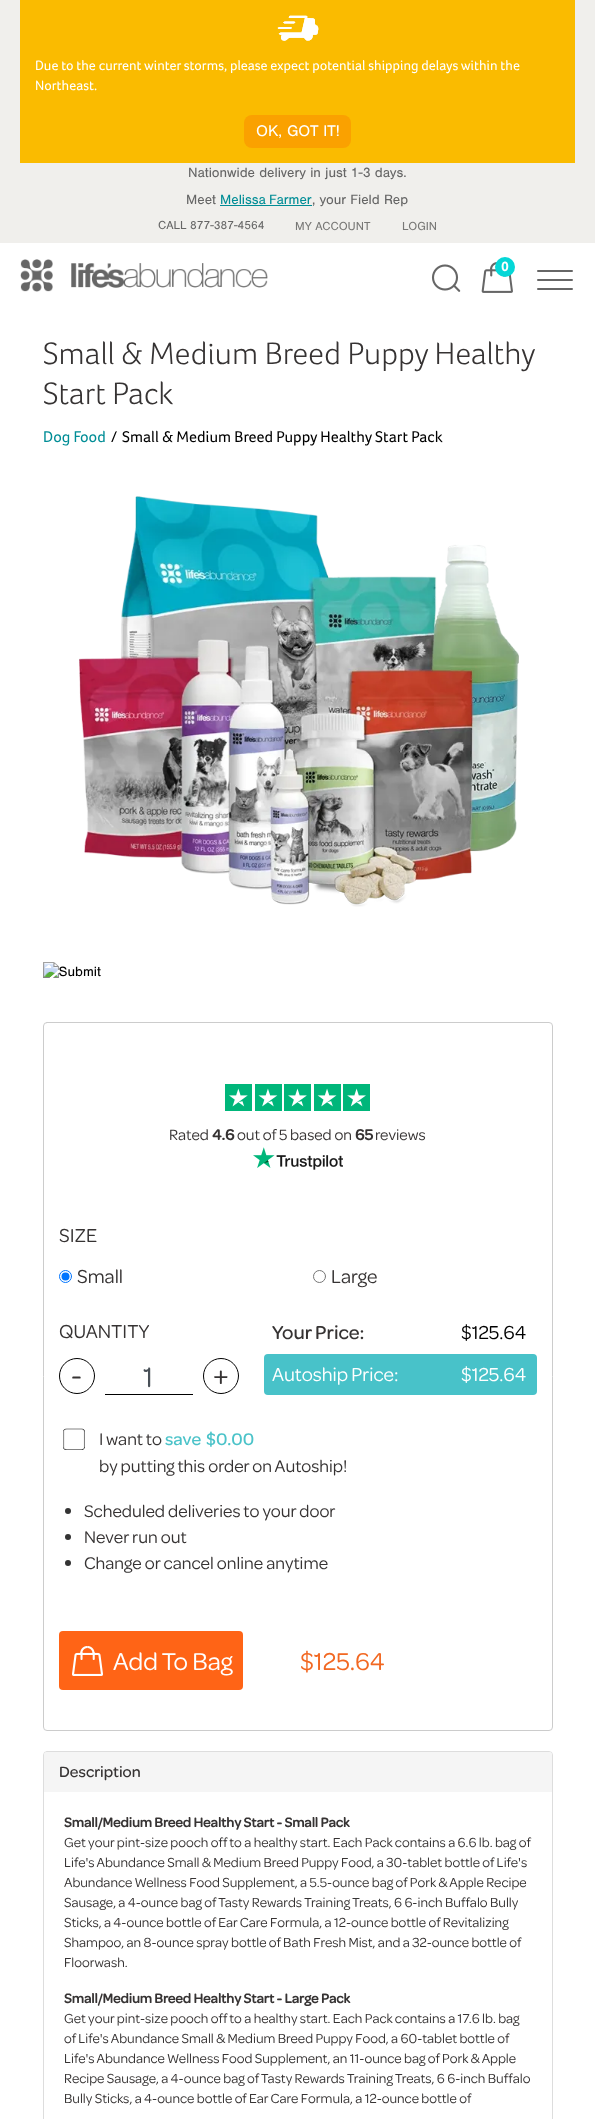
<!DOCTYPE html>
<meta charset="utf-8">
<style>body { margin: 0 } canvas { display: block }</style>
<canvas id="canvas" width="595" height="2119"></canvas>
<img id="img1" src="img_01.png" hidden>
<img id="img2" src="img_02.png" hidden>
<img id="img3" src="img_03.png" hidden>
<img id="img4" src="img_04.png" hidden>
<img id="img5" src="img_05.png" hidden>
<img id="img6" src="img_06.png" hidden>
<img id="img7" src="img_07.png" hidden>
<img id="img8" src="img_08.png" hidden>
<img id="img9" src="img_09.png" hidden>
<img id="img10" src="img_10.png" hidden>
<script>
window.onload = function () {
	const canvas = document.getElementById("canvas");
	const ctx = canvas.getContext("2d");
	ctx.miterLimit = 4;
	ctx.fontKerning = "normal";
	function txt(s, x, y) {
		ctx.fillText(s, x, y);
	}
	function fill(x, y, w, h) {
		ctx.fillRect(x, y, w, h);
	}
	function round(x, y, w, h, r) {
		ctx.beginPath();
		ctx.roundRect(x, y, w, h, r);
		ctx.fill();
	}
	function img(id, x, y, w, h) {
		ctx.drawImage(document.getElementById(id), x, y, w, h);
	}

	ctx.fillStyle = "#FFFFFF";
	fill(0, 0, 595, 2119);
	ctx.fillStyle = "#F0EFEC";
	fill(0, 0, 595, 243);
	ctx.fillStyle = "#FABB00";
	fill(20, 0, 555, 163);
	img("img1", 277, 15, 42, 26);
	ctx.fillStyle = "#FAA100";
	round(244, 115, 107, 33, 8);
	ctx.fillStyle = "#008D96";
	fill(220, 205, 92, 1);
	img("img2", 20, 259, 248, 33);
	img("img3", 431, 264, 30, 28);
	img("img4", 481, 262, 32, 31);
	ctx.fillStyle = "#05D7D7";
	ctx.beginPath();
	ctx.arc(505, 267, 10, 0, Math.PI * 2);
	ctx.fill();
	ctx.beginPath();
	ctx.moveTo(538, 271);
	ctx.lineTo(572, 271);
	ctx.moveTo(538, 280);
	ctx.lineTo(572, 280);
	ctx.moveTo(538, 289);
	ctx.lineTo(572, 289);
	ctx.strokeStyle = "#666666";
	ctx.lineWidth = 2;
	ctx.lineCap = "round";
	ctx.stroke();
	img("img5", 79, 496, 440, 411);
	img("img6", 43, 962, 58, 16);
	ctx.beginPath();
	ctx.roundRect(43.5, 1022.5, 509, 708, 3.5);
	ctx.strokeStyle = "#CCCCCC";
	ctx.lineWidth = 1;
	ctx.stroke();
	img("img7", 225, 1084, 145, 27);
	img("img8", 253, 1147, 90, 23);
	ctx.beginPath();
	ctx.arc(65.5, 1276.5, 6, 0, Math.PI * 2);
	ctx.strokeStyle = "#0075FF";
	ctx.stroke();
	ctx.fillStyle = "#0075FF";
	ctx.beginPath();
	ctx.arc(65.5, 1276.5, 4, 0, Math.PI * 2);
	ctx.fill();
	ctx.beginPath();
	ctx.arc(319.5, 1276.5, 6, 0, Math.PI * 2);
	ctx.strokeStyle = "#767676";
	ctx.stroke();
	ctx.beginPath();
	ctx.arc(77, 1376, 17.5, 0, Math.PI * 2);
	ctx.strokeStyle = "#000000";
	ctx.stroke();
	ctx.fillStyle = "#000000";
	fill(105, 1394, 88, 1);
	ctx.beginPath();
	ctx.arc(221, 1376, 17.5, 0, Math.PI * 2);
	ctx.stroke();
	ctx.fillStyle = "#48C2C9";
	round(264, 1354, 273, 41, 4);
	img("img9", 63, 1428, 22, 22);
	ctx.fillStyle = "#333333";
	ctx.beginPath();
	ctx.arc(68, 1511, 3, 0, Math.PI * 2);
	ctx.fill();
	ctx.beginPath();
	ctx.arc(68, 1537, 3, 0, Math.PI * 2);
	ctx.fill();
	ctx.beginPath();
	ctx.arc(68, 1563, 3, 0, Math.PI * 2);
	ctx.fill();
	ctx.fillStyle = "#FF6416";
	round(59, 1631, 184, 59, 4);
	img("img10", 72, 1646, 31, 30);
	ctx.beginPath();
	ctx.roundRect(43.5, 1751.5, 509, 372, 3.5);
	ctx.strokeStyle = "#DDDDDD";
	ctx.stroke();
	ctx.fillStyle = "#F5F5F5";
	ctx.beginPath();
	ctx.roundRect(44, 1752, 508, 40, [3, 3, 0, 0]);
	ctx.fill();
	ctx.font = "14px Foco";
	ctx.fillStyle = "#FFFFFF";
	txt("Due to the current winter storms, please expect potential shipping delays within the", 35, 70);
	txt("Northeast.", 35, 90);
	ctx.font = "16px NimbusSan";
	txt("OK, GOT IT!", 256, 136);
	ctx.font = "14px NimbusSan";
	ctx.fillStyle = "#666666";
	txt("Nationwide delivery in just 1-3 days.", 188, 177);
	txt("Meet", 186, 204);
	ctx.wordSpacing = "-1px";
	ctx.fillStyle = "#008D96";
	txt("Melissa Farmer", 220, 204);
	ctx.wordSpacing = "0px";
	ctx.fillStyle = "#666666";
	txt(", your Field Rep", 312, 204);
	ctx.font = "12px NimbusSan";
	txt("CALL 877-387-4564", 158, 229);
	ctx.fillStyle = "#787876";
	txt("MY ACCOUNT", 295, 230);
	txt("LOGIN", 402, 230);
	ctx.font = "bold 14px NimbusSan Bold";
	ctx.fillStyle = "#FFFFFF";
	txt("0", 501, 271);
	ctx.font = "300 32px Foco";
	ctx.fillStyle = "#363333";
	txt("Small & Medium Breed Puppy Healthy", 43, 364);
	txt("Start Pack", 43, 404);
	ctx.font = "16px Foco";
	ctx.fillStyle = "#008D96";
	txt("Dog Food", 43, 442);
	ctx.fillStyle = "#000000";
	txt("/", 111, 442);
	txt("Small & Medium Breed Puppy Healthy Start Pack", 122, 442);
	ctx.font = "16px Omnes";
	ctx.fillStyle = "#363333";
	txt("Rated", 169, 1140);
	ctx.font = "bold 16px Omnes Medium";
	txt("4.6", 212, 1140);
	ctx.font = "16px Omnes";
	txt("out of 5 based on", 237, 1140);
	ctx.font = "bold 16px Omnes Medium";
	txt("65", 355, 1140);
	ctx.font = "16px Omnes";
	txt("reviews", 375, 1140);
	ctx.font = "20px Omnes";
	txt("SIZE", 59, 1242);
	txt("Small", 77, 1283);
	txt("Large", 331, 1283);
	txt("QUANTITY", 59, 1338);
	ctx.font = "30px Omnes";
	txt("-", 71, 1385);
	ctx.fillStyle = "#495057";
	txt("1", 143, 1387);
	ctx.fillStyle = "#363333";
	txt("+", 213, 1385);
	ctx.font = "500 20px Omnes Medium";
	txt("Your Price:", 272, 1339);
	ctx.font = "20px Omnes";
	ctx.fillStyle = "#000000";
	txt("$125.64", 461, 1339);
	ctx.fillStyle = "#FFFFFF";
	txt("Autoship Price:", 272, 1381);
	txt("$125.64", 461, 1381);
	ctx.font = "18px Omnes";
	ctx.fillStyle = "#363333";
	txt("I want to", 99, 1445);
	ctx.font = "500 18px Omnes Medium";
	ctx.fillStyle = "#4BC3C9";
	txt("save", 165, 1445);
	txt("$0.00", 206, 1445);
	ctx.font = "18px Omnes";
	ctx.fillStyle = "#363333";
	txt("by putting this order on Autoship!", 99, 1472);
	txt("Scheduled deliveries to your door", 84, 1517);
	txt("Never run out", 84, 1543);
	txt("Change or cancel online anytime", 84, 1569);
	ctx.font = "26px Omnes";
	ctx.fillStyle = "#FFFFFF";
	txt("Add To Bag", 113, 1670);
	ctx.fillStyle = "#F26822";
	txt("$125.64", 300, 1670);
	ctx.font = "500 16px Omnes Medium";
	ctx.fillStyle = "#363333";
	txt("Description", 59, 1777);
	ctx.font = "bold 14px Omnes Medium";
	txt("Small/Medium Breed Healthy Start - Small Pack", 64, 1827);
	ctx.font = "14px Omnes";
	txt("Get your pint-size pooch off to a healthy start. Each Pack contains a 6.6 lb. bag of", 64, 1847);
	txt("Life's Abundance Small & Medium Breed Puppy Food, a 30-tablet bottle of Life's", 64, 1867);
	txt("Abundance Wellness Food Supplement, a 5.5-ounce bag of Pork & Apple Recipe", 64, 1887);
	txt("Sausage, a 4-ounce bag of Tasty Rewards Training Treats, 6 6-inch Buffalo Bully", 64, 1907);
	txt("Sticks, a 4-ounce bottle of Ear Care Formula, a 12-ounce bottle of Revitalizing", 64, 1927);
	txt("Shampoo, an 8-ounce spray bottle of Bath Fresh Mist, and a 32-ounce bottle of", 64, 1947);
	txt("Floorwash.", 64, 1967);
	ctx.font = "bold 14px Omnes Medium";
	txt("Small/Medium Breed Healthy Start - Large Pack", 64, 2003);
	ctx.font = "14px Omnes";
	txt("Get your pint-size pooch off to a healthy start. Each Pack contains a 17.6 lb. bag", 64, 2023);
	txt("of Life's Abundance Small & Medium Breed Puppy Food, a 60-tablet bottle of", 64, 2043);
	txt("Life's Abundance Wellness Food Supplement, an 11-ounce bag of Pork & Apple", 64, 2063);
	txt("Recipe Sausage, a 4-ounce bag of Tasty Rewards Training Treats, 6 6-inch Buffalo", 64, 2083);
	txt("Bully Sticks, a 4-ounce bottle of Ear Care Formula, a 12-ounce bottle of", 64, 2103);
};
</script>
